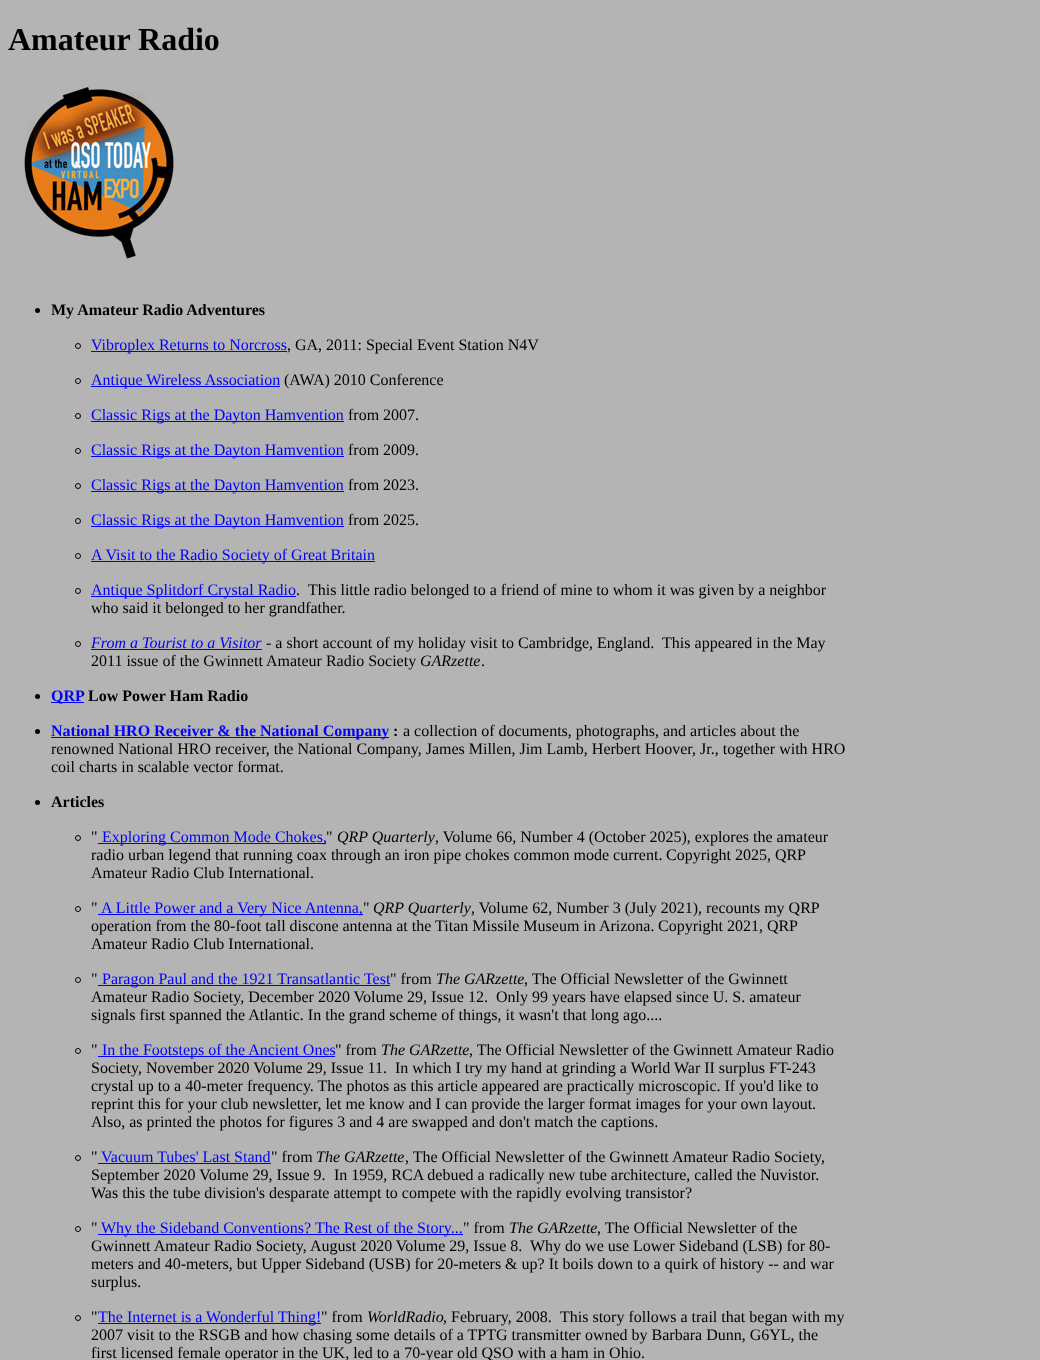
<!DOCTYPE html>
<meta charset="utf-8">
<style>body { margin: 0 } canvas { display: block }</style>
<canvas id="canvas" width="1040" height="1360"></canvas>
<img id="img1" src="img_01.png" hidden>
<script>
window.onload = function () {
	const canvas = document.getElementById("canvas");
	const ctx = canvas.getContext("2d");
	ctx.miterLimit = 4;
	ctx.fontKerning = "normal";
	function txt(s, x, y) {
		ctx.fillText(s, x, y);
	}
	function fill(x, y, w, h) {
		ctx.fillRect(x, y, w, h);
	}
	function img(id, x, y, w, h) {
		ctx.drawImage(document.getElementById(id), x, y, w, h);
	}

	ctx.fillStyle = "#B4B4B4";
	fill(0, 0, 1040, 1360);
	img("img1", 24, 87, 150, 172);
	ctx.fillStyle = "#000000";
	ctx.beginPath();
	ctx.arc(37.5, 310.5, 2.5, 0, Math.PI * 2);
	ctx.fill();
	ctx.beginPath();
	ctx.arc(78, 346, 2.5, 0, Math.PI * 2);
	ctx.strokeStyle = "#000000";
	ctx.stroke();
	ctx.fillStyle = "#0000FF";
	fill(91, 351, 196, 1);
	ctx.beginPath();
	ctx.arc(78, 381, 2.5, 0, Math.PI * 2);
	ctx.stroke();
	fill(91, 386, 189, 1);
	ctx.beginPath();
	ctx.arc(78, 416, 2.5, 0, Math.PI * 2);
	ctx.stroke();
	fill(91, 421, 253, 1);
	ctx.beginPath();
	ctx.arc(78, 451, 2.5, 0, Math.PI * 2);
	ctx.stroke();
	fill(91, 456, 253, 1);
	ctx.beginPath();
	ctx.arc(78, 486, 2.5, 0, Math.PI * 2);
	ctx.stroke();
	fill(91, 491, 253, 1);
	ctx.beginPath();
	ctx.arc(78, 521, 2.5, 0, Math.PI * 2);
	ctx.stroke();
	fill(91, 526, 253, 1);
	ctx.beginPath();
	ctx.arc(78, 556, 2.5, 0, Math.PI * 2);
	ctx.stroke();
	fill(91, 561, 284, 1);
	ctx.beginPath();
	ctx.arc(78, 591, 2.5, 0, Math.PI * 2);
	ctx.stroke();
	fill(91, 596, 205, 1);
	ctx.beginPath();
	ctx.arc(78, 644, 2.5, 0, Math.PI * 2);
	ctx.stroke();
	fill(91, 649, 171, 1);
	ctx.fillStyle = "#000000";
	ctx.beginPath();
	ctx.arc(37.5, 696.5, 2.5, 0, Math.PI * 2);
	ctx.fill();
	ctx.fillStyle = "#0000FF";
	fill(51, 702, 33, 1);
	ctx.fillStyle = "#000000";
	ctx.beginPath();
	ctx.arc(37.5, 731.5, 2.5, 0, Math.PI * 2);
	ctx.fill();
	ctx.fillStyle = "#0000FF";
	fill(51, 737, 338, 1);
	ctx.fillStyle = "#000000";
	ctx.beginPath();
	ctx.arc(37.5, 802.5, 2.5, 0, Math.PI * 2);
	ctx.fill();
	ctx.beginPath();
	ctx.arc(78, 838, 2.5, 0, Math.PI * 2);
	ctx.stroke();
	ctx.fillStyle = "#0000FF";
	fill(98, 843, 228, 1);
	ctx.beginPath();
	ctx.arc(78, 909, 2.5, 0, Math.PI * 2);
	ctx.stroke();
	fill(98, 914, 265, 1);
	ctx.beginPath();
	ctx.arc(78, 980, 2.5, 0, Math.PI * 2);
	ctx.stroke();
	fill(98, 985, 292, 1);
	ctx.beginPath();
	ctx.arc(78, 1051, 2.5, 0, Math.PI * 2);
	ctx.stroke();
	fill(98, 1056, 237, 1);
	ctx.beginPath();
	ctx.arc(78, 1158, 2.5, 0, Math.PI * 2);
	ctx.stroke();
	fill(98, 1163, 173, 1);
	ctx.beginPath();
	ctx.arc(78, 1229, 2.5, 0, Math.PI * 2);
	ctx.stroke();
	fill(98, 1234, 365, 1);
	ctx.beginPath();
	ctx.arc(78, 1318, 2.5, 0, Math.PI * 2);
	ctx.stroke();
	fill(98, 1323, 223, 1);
	ctx.font = "bold 32px Liberation Serif";
	ctx.fillStyle = "#000000";
	txt("Amateur Radio", 8, 50);
	ctx.font = "bold 16px Liberation Serif";
	txt("My Amateur Radio Adventures", 51, 315);
	ctx.font = "16px Liberation Serif";
	ctx.fillStyle = "#0000FF";
	txt("Vibroplex Returns to Norcross", 91, 350);
	ctx.fillStyle = "#000000";
	txt(", GA, 2011: Special Event Station N4V", 287, 350);
	ctx.fillStyle = "#0000FF";
	txt("Antique Wireless Association", 91, 385);
	ctx.fillStyle = "#000000";
	txt("(AWA) 2010 Conference", 284, 385);
	ctx.fillStyle = "#0000FF";
	txt("Classic Rigs at the Dayton Hamvention", 91, 420);
	ctx.fillStyle = "#000000";
	txt("from 2007.", 348, 420);
	ctx.fillStyle = "#0000FF";
	txt("Classic Rigs at the Dayton Hamvention", 91, 455);
	ctx.fillStyle = "#000000";
	txt("from 2009.", 348, 455);
	ctx.fillStyle = "#0000FF";
	txt("Classic Rigs at the Dayton Hamvention", 91, 490);
	ctx.fillStyle = "#000000";
	txt("from 2023.", 348, 490);
	ctx.fillStyle = "#0000FF";
	txt("Classic Rigs at the Dayton Hamvention", 91, 525);
	ctx.fillStyle = "#000000";
	txt("from 2025.", 348, 525);
	ctx.fillStyle = "#0000FF";
	txt("A Visit to the Radio Society of Great Britain", 91, 560);
	txt("Antique Splitdorf Crystal Radio", 91, 595);
	ctx.fillStyle = "#000000";
	txt(".", 296, 595);
	txt("This little radio belonged to a friend of mine to whom it was given by a neighbor", 308, 595);
	txt("who said it belonged to her grandfather.", 91, 613);
	ctx.font = "italic 16px Liberation Serif";
	ctx.fillStyle = "#0000FF";
	txt("From a Tourist to a Visitor", 91, 648);
	ctx.font = "16px Liberation Serif";
	ctx.fillStyle = "#000000";
	txt("- a short account of my holiday visit to Cambridge, England.  This appeared in the May", 266, 648);
	txt("2011 issue of the Gwinnett Amateur Radio Society", 91, 666);
	ctx.font = "italic 16px Liberation Serif";
	txt("GARzette", 420, 666);
	ctx.font = "16px Liberation Serif";
	txt(".", 481, 666);
	ctx.font = "bold 16px Liberation Serif";
	ctx.fillStyle = "#0000FF";
	txt("QRP", 51, 701);
	ctx.fillStyle = "#000000";
	txt("Low Power Ham Radio", 88, 701);
	ctx.fillStyle = "#0000FF";
	txt("National HRO Receiver & the National Company", 51, 736);
	ctx.fillStyle = "#000000";
	txt(":", 393, 736);
	ctx.font = "16px Liberation Serif";
	txt("a collection of documents, photographs, and articles about the", 403, 736);
	txt("renowned National HRO receiver, the National Company, James Millen, Jim Lamb, Herbert Hoover, Jr., together with HRO", 51, 754);
	txt("coil charts in scalable vector format.", 51, 772);
	ctx.font = "bold 16px Liberation Serif";
	txt("Articles", 51, 807);
	ctx.font = "16px Liberation Serif";
	txt("\"", 91, 842);
	ctx.fillStyle = "#0000FF";
	txt("Exploring Common Mode Chokes,", 102, 842);
	ctx.fillStyle = "#000000";
	txt("\"", 326, 842);
	ctx.font = "italic 16px Liberation Serif";
	txt("QRP Quarterly", 337, 842);
	ctx.font = "16px Liberation Serif";
	txt(", Volume 66, Number 4 (October 2025), explores the amateur", 435, 842);
	txt("radio urban legend that running coax through an iron pipe chokes common mode current.", 91, 860);
	txt("Copyright 2025, QRP", 666, 860);
	txt("Amateur Radio Club International.", 91, 878);
	txt("\"", 91, 913);
	ctx.fillStyle = "#0000FF";
	txt("A Little Power and a Very Nice Antenna,", 101, 913);
	ctx.fillStyle = "#000000";
	txt("\"", 363, 913);
	ctx.font = "italic 16px Liberation Serif";
	txt("QRP Quarterly", 373, 913);
	ctx.font = "16px Liberation Serif";
	txt(", Volume 62, Number 3 (July 2021), recounts my QRP", 471, 913);
	txt("operation from the 80-foot tall discone antenna at the Titan Missile Museum in Arizona.", 91, 931);
	txt("Copyright 2021, QRP", 658, 931);
	txt("Amateur Radio Club International.", 91, 949);
	txt("\"", 91, 984);
	ctx.fillStyle = "#0000FF";
	txt("Paragon Paul and the 1921 Transatlantic Test", 102, 984);
	ctx.fillStyle = "#000000";
	txt("\" from", 390, 984);
	ctx.font = "italic 16px Liberation Serif";
	txt("The GARzette", 436, 984);
	ctx.font = "16px Liberation Serif";
	txt(", The Official Newsletter of the Gwinnett", 524, 984);
	txt("Amateur Radio Society, December 2020 Volume 29, Issue 12.", 91, 1002);
	txt("Only 99 years have elapsed since U. S. amateur", 496, 1002);
	txt("signals first spanned the Atlantic. In the grand scheme of things, it wasn't that long ago....", 91, 1020);
	txt("\"", 91, 1055);
	ctx.fillStyle = "#0000FF";
	txt("In the Footsteps of the Ancient Ones", 102, 1055);
	ctx.fillStyle = "#000000";
	txt("\" from", 335, 1055);
	ctx.font = "italic 16px Liberation Serif";
	txt("The GARzette", 381, 1055);
	ctx.font = "16px Liberation Serif";
	txt(", The Official Newsletter of the Gwinnett Amateur Radio", 469, 1055);
	txt("Society, November 2020 Volume 29, Issue 11.", 91, 1073);
	txt("In which I try my hand at grinding a World War II surplus FT-243", 395, 1073);
	txt("crystal up to a 40-meter frequency. The photos as this article appeared are practically microscopic. If you'd like to", 91, 1091);
	txt("reprint this for your club newsletter, let me know and I can provide the larger format images for your own layout.", 91, 1109);
	txt("Also, as printed the photos for figures 3 and 4 are swapped and don't match the captions.", 91, 1127);
	txt("\"", 91, 1162);
	ctx.fillStyle = "#0000FF";
	txt("Vacuum Tubes' Last Stand", 101, 1162);
	ctx.fillStyle = "#000000";
	txt("\" from", 271, 1162);
	ctx.font = "italic 16px Liberation Serif";
	txt("The GARzette", 316, 1162);
	ctx.font = "16px Liberation Serif";
	txt(", The Official Newsletter of the Gwinnett Amateur Radio Society,", 405, 1162);
	txt("September 2020 Volume 29, Issue 9.", 91, 1180);
	txt("In 1959, RCA debued a radically new tube architecture, called the Nuvistor.", 334, 1180);
	txt("Was this the tube division's desparate attempt to compete with the rapidly evolving transistor?", 91, 1198);
	txt("\"", 91, 1233);
	ctx.fillStyle = "#0000FF";
	txt("Why the Sideband Conventions? The Rest of the Story...", 101, 1233);
	ctx.fillStyle = "#000000";
	txt("\" from", 463, 1233);
	ctx.font = "italic 16px Liberation Serif";
	txt("The GARzette", 509, 1233);
	ctx.font = "16px Liberation Serif";
	txt(", The Official Newsletter of the", 597, 1233);
	txt("Gwinnett Amateur Radio Society, August 2020 Volume 29, Issue 8.", 91, 1251);
	txt("Why do we use Lower Sideband (LSB) for 80-", 530, 1251);
	txt("meters and 40-meters, but Upper Sideband (USB) for 20-meters & up? It boils down to a quirk of history -- and war", 91, 1269);
	txt("surplus.", 91, 1287);
	txt("\"", 91, 1322);
	ctx.fillStyle = "#0000FF";
	txt("The Internet is a Wonderful Thing!", 98, 1322);
	ctx.fillStyle = "#000000";
	txt("\" from", 321, 1322);
	ctx.font = "italic 16px Liberation Serif";
	txt("WorldRadio", 367, 1322);
	ctx.font = "16px Liberation Serif";
	txt(", February, 2008.", 443, 1322);
	txt("This story follows a trail that began with my", 560, 1322);
	txt("2007 visit to the RSGB and how chasing some details of a TPTG transmitter owned by Barbara Dunn, G6YL, the", 91, 1340);
	txt("first licensed female operator in the UK, led to a 70-year old QSO with a ham in Ohio.", 91, 1358);
};
</script>
